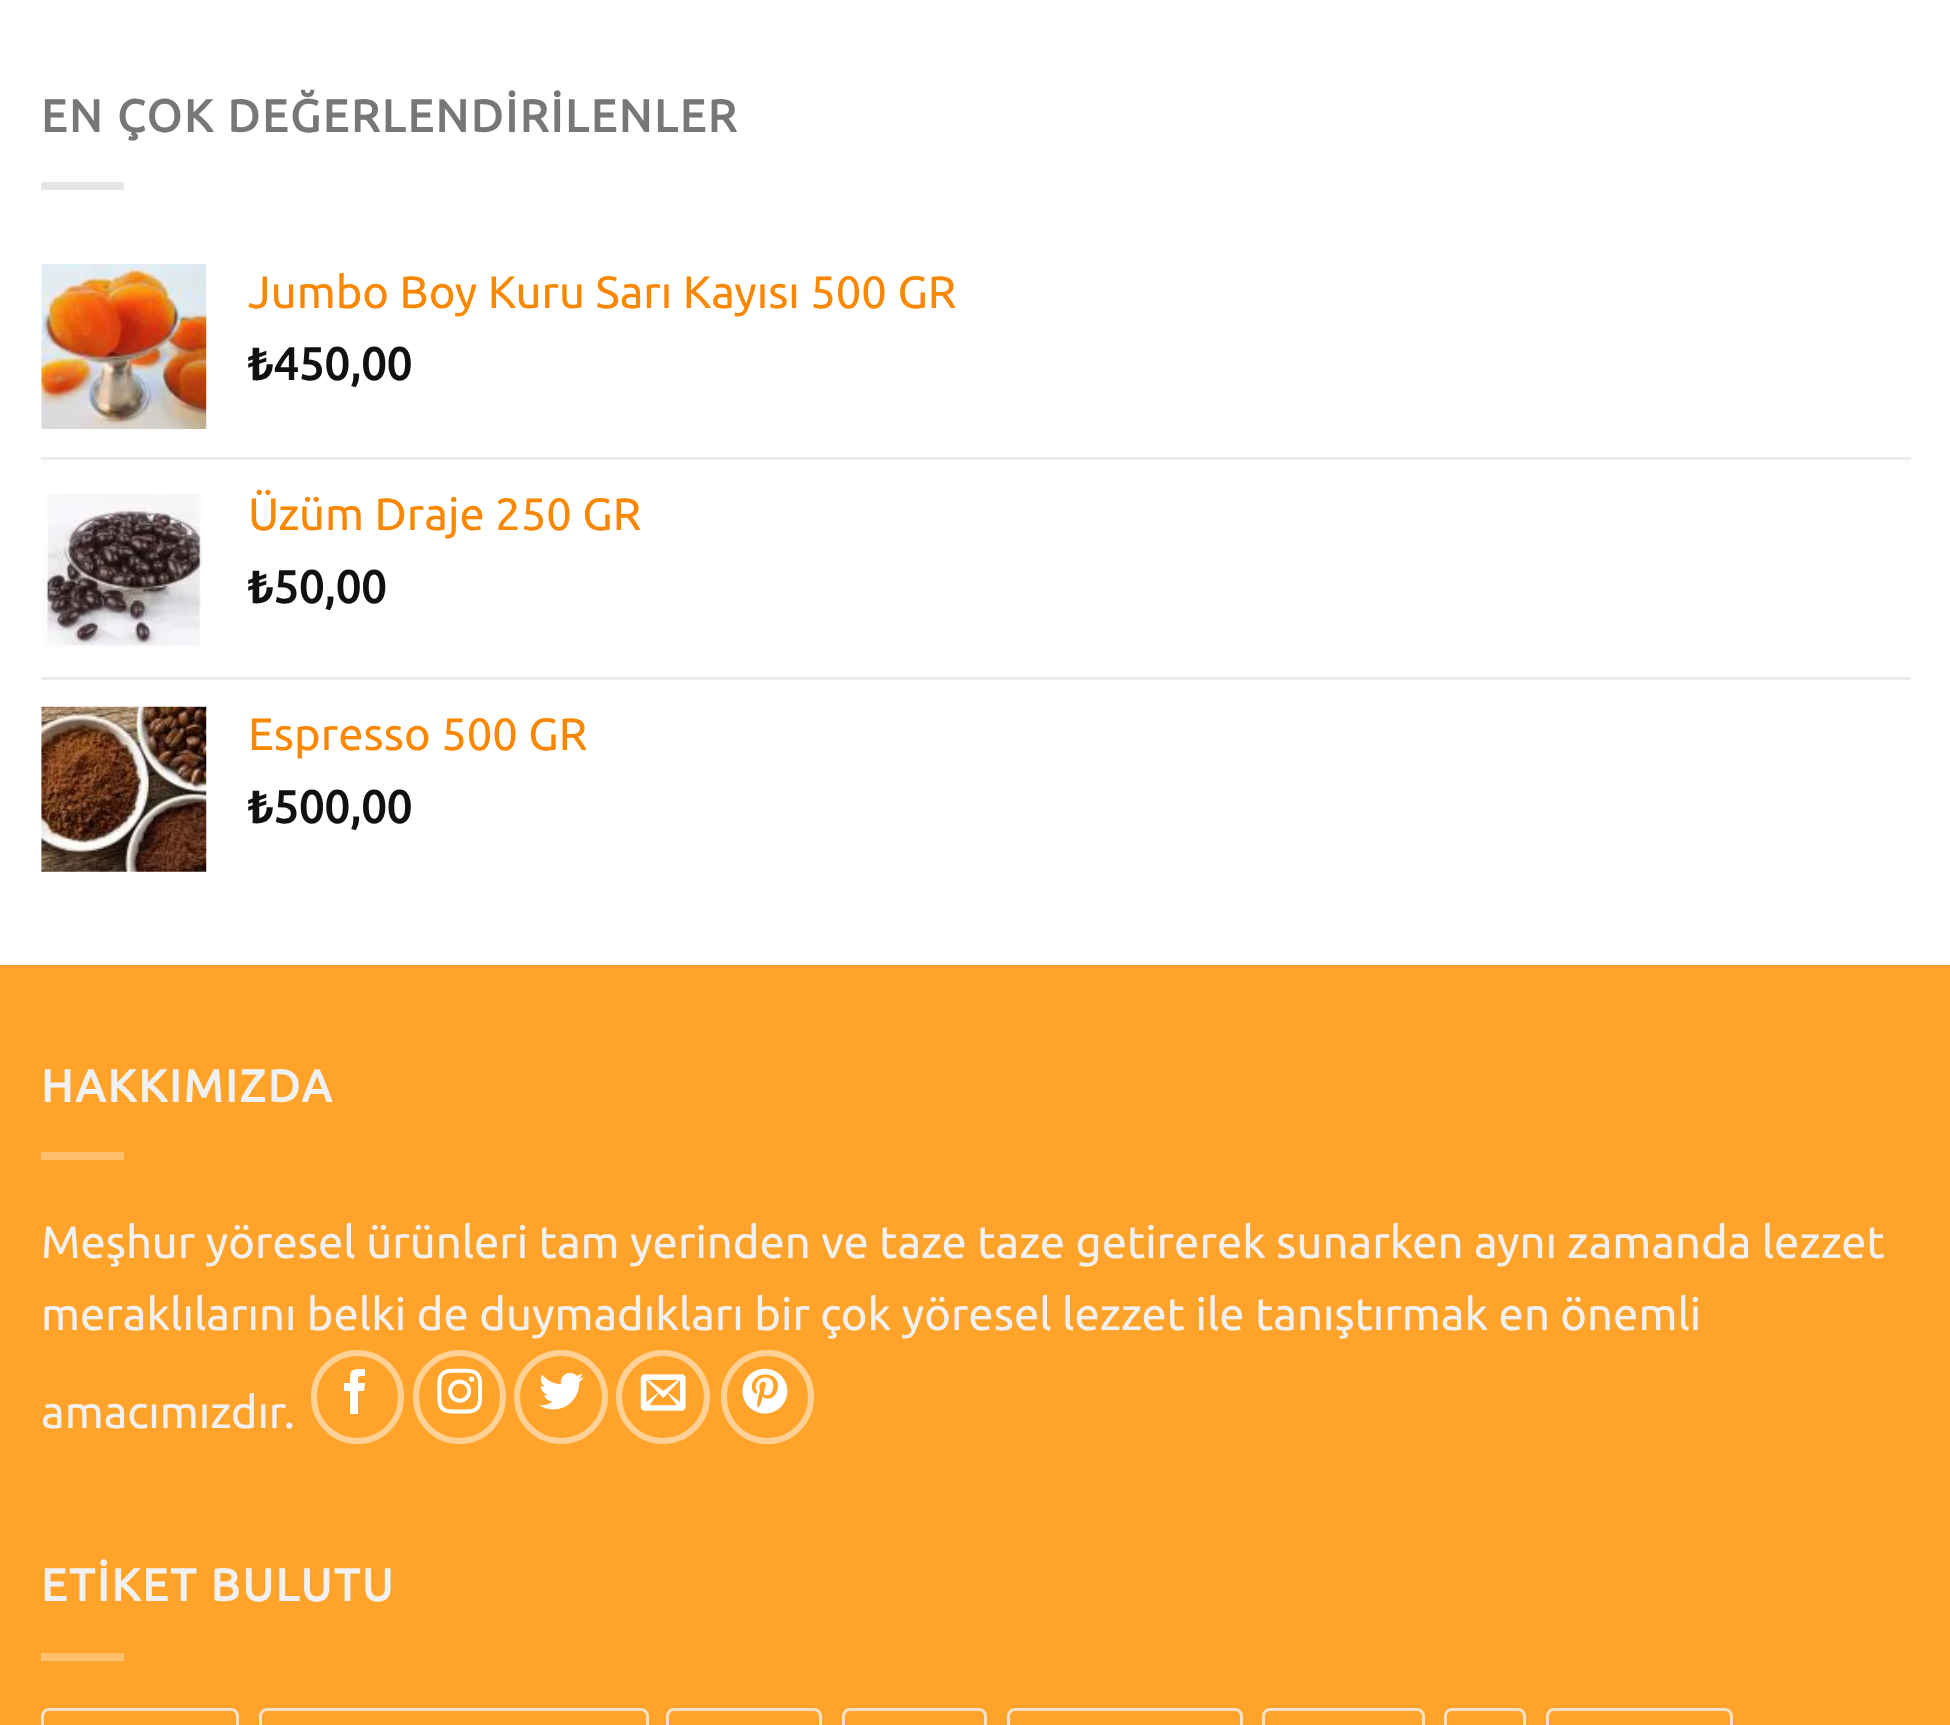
<!DOCTYPE html>
<meta charset="utf-8">
<style>body { margin: 0 } canvas { display: block }</style>
<canvas id="canvas" width="1950" height="1725"></canvas>
<img id="img1" src="img_01.png" hidden>
<img id="img2" src="img_02.png" hidden>
<img id="img3" src="img_03.png" hidden>
<img id="img4" src="img_04.png" hidden>
<img id="img5" src="img_05.png" hidden>
<img id="img6" src="img_06.png" hidden>
<img id="img7" src="img_07.png" hidden>
<script>
window.onload = function () {
	const canvas = document.getElementById("canvas");
	const ctx = canvas.getContext("2d");
	ctx.miterLimit = 4;
	ctx.fontKerning = "normal";
	function txt(s, x, y) {
		ctx.fillText(s, x, y);
	}
	function fill(x, y, w, h) {
		ctx.fillRect(x, y, w, h);
	}
	function img(id, x, y, w, h) {
		ctx.drawImage(document.getElementById(id), x, y, w, h);
	}

	ctx.fillStyle = "#FFFFFF";
	fill(0, 0, 1950, 1725);
	ctx.fillStyle = "#E6E6E6";
	fill(41, 182, 83, 8);
	img("img1", 41, 264, 166, 165);
	ctx.fillStyle = "#ECECEC";
	fill(41, 457, 1870, 3);
	img("img2", 42, 493, 160, 155);
	fill(41, 677, 1870, 3);
	img("img3", 41, 706, 166, 166);
	ctx.fillStyle = "#FFA32B";
	fill(0, 968, 1950, 757);
	ctx.fillStyle = "#F29B29";
	fill(0, 965, 1950, 3);
	ctx.fillStyle = "#FFBF6B";
	fill(41, 1152, 83, 8);
	ctx.beginPath();
	ctx.roundRect(314, 1353, 87, 88, 43.5);
	ctx.strokeStyle = "#FFD195";
	ctx.lineWidth = 6;
	ctx.stroke();
	ctx.fillStyle = "#FFFFFF";
	ctx.beginPath();
	ctx.moveTo(358, 1414);
	ctx.lineTo(350, 1414);
	ctx.lineTo(350, 1391);
	ctx.lineTo(344, 1391);
	ctx.lineTo(344, 1383);
	ctx.lineTo(350, 1383);
	ctx.bezierCurveTo(350, 1369, 351, 1369, 365, 1369);
	ctx.lineTo(365, 1376);
	ctx.bezierCurveTo(357, 1376, 358, 1376, 358, 1383);
	ctx.lineTo(365, 1383);
	ctx.lineTo(364, 1391);
	ctx.lineTo(358, 1391);
	ctx.closePath();
	ctx.fill();
	ctx.beginPath();
	ctx.roundRect(416, 1353, 87, 88, 43.5);
	ctx.stroke();
	img("img4", 437, 1368, 46, 46);
	ctx.beginPath();
	ctx.arc(561, 1397, 44, 0, Math.PI * 2);
	ctx.stroke();
	img("img5", 539, 1372, 45, 38);
	ctx.beginPath();
	ctx.arc(663, 1397, 44, 0, Math.PI * 2);
	ctx.stroke();
	img("img6", 640, 1374, 46, 37);
	ctx.beginPath();
	ctx.roundRect(724, 1353, 87, 88, 43.5);
	ctx.stroke();
	img("img7", 742, 1368, 46, 46);
	ctx.fillStyle = "#FFBF6B";
	fill(41, 1653, 83, 8);
	ctx.beginPath();
	ctx.roundRect(42.5, 1709.5, 195, 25, 6.5);
	ctx.strokeStyle = "#F4E1C9";
	ctx.lineWidth = 3;
	ctx.stroke();
	ctx.beginPath();
	ctx.roundRect(260.5, 1709.5, 387, 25, 6.5);
	ctx.stroke();
	ctx.beginPath();
	ctx.roundRect(667.5, 1709.5, 153, 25, 6.5);
	ctx.stroke();
	ctx.beginPath();
	ctx.roundRect(843.5, 1709.5, 142, 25, 6.5);
	ctx.stroke();
	ctx.beginPath();
	ctx.roundRect(1008.5, 1709.5, 233, 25, 6.5);
	ctx.stroke();
	ctx.beginPath();
	ctx.roundRect(1263.5, 1709.5, 160, 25, 6.5);
	ctx.stroke();
	ctx.beginPath();
	ctx.roundRect(1445.5, 1709.5, 79, 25, 6.5);
	ctx.stroke();
	ctx.beginPath();
	ctx.roundRect(1547.5, 1709.5, 184, 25, 6.5);
	ctx.stroke();
	ctx.letterSpacing = "2.25px";
	ctx.font = "bold 45.3px Ubuntu";
	ctx.fillStyle = "#777777";
	txt("EN ÇOK DEĞERLENDİRİLENLER", 41, 132);
	ctx.letterSpacing = "0px";
	ctx.font = "45.3px Ubuntu";
	ctx.fillStyle = "#F98700";
	txt("Jumbo Boy Kuru Sarı Kayısı 500 GR", 248, 308);
	ctx.font = "bold 45.3px Noto Sans";
	ctx.fillStyle = "#111111";
	txt("₺", 248, 380);
	ctx.font = "bold 45.3px Ubuntu";
	txt("450,00", 273, 380);
	ctx.font = "45.3px Ubuntu";
	ctx.fillStyle = "#F98700";
	txt("Üzüm Draje 250 GR", 248, 530);
	ctx.font = "bold 45.3px Noto Sans";
	ctx.fillStyle = "#111111";
	txt("₺", 248, 603);
	ctx.font = "bold 45.3px Ubuntu";
	txt("50,00", 273, 603);
	ctx.font = "45.3px Ubuntu";
	ctx.fillStyle = "#F98700";
	txt("Espresso 500 GR", 248, 750);
	ctx.font = "bold 45.3px Noto Sans";
	ctx.fillStyle = "#111111";
	txt("₺", 248, 823);
	ctx.font = "bold 45.3px Ubuntu";
	txt("500,00", 273, 823);
	ctx.letterSpacing = "2.25px";
	ctx.fillStyle = "#F1F1F1";
	txt("HAKKIMIZDA", 41, 1102);
	ctx.letterSpacing = "0px";
	ctx.font = "45.3px Ubuntu";
	txt("Meşhur yöresel ürünleri tam yerinden ve taze taze getirerek sunarken aynı zamanda lezzet", 41, 1258);
	txt("meraklılarını belki de duymadıkları bir çok yöresel lezzet ile tanıştırmak en önemli", 41, 1330);
	txt("amacımızdır.", 41, 1428);
	ctx.letterSpacing = "2.25px";
	ctx.font = "bold 45.3px Ubuntu";
	txt("ETİKET BULUTU", 41, 1601);
};
</script>
